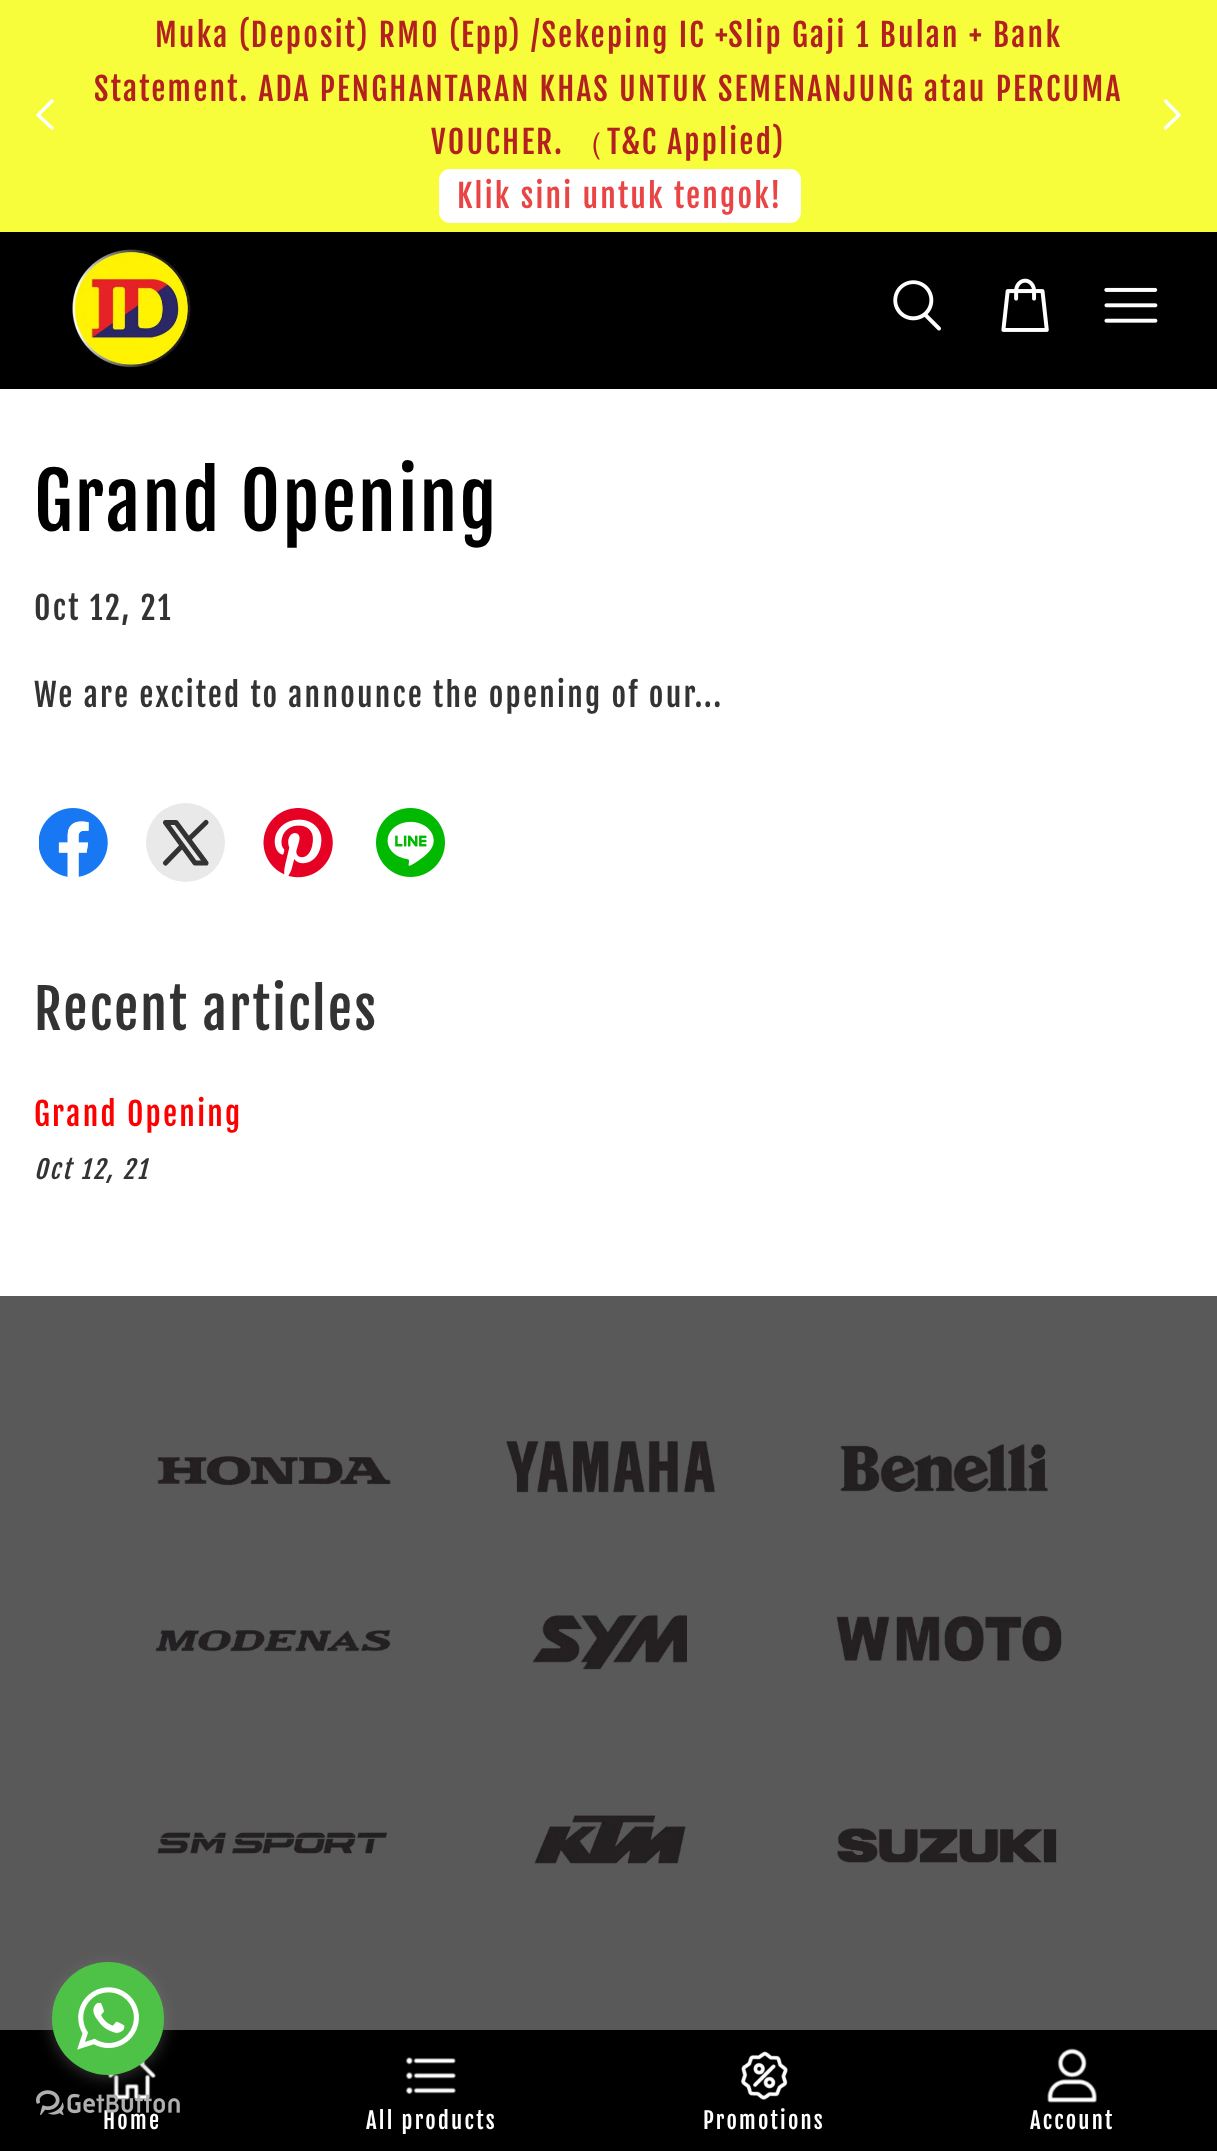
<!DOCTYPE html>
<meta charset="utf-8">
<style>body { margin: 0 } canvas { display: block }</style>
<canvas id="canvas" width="1217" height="2151"></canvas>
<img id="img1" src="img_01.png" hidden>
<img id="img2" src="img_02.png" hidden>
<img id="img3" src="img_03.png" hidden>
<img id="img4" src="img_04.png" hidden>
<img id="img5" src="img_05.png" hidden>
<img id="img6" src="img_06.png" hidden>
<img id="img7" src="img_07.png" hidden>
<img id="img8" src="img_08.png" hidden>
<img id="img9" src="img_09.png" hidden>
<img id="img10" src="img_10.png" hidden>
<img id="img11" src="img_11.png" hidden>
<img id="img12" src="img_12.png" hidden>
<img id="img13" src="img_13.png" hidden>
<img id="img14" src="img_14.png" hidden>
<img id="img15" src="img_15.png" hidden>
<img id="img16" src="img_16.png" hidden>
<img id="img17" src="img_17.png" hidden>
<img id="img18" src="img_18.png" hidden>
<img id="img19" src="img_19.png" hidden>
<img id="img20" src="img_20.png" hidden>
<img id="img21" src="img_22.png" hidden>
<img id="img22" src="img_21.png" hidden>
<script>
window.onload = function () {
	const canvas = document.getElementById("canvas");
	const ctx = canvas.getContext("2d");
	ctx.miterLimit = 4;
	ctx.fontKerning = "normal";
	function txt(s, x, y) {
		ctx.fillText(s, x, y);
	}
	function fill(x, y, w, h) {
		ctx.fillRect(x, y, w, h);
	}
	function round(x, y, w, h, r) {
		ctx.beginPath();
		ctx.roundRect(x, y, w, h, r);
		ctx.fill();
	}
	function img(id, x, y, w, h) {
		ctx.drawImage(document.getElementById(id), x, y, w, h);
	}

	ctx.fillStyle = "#FFFFFF";
	fill(0, 0, 1217, 2151);
	ctx.fillStyle = "#F7FC3B";
	fill(0, 0, 1217, 232);
	ctx.beginPath();
	ctx.moveTo(52, 101);
	ctx.lineTo(38, 115);
	ctx.lineTo(52, 128);
	ctx.strokeStyle = "#FFFFFF";
	ctx.lineWidth = 3.4;
	ctx.lineCap = "round";
	ctx.lineJoin = "round";
	ctx.stroke();
	ctx.fillStyle = "#FFFFFF";
	round(439, 169, 362, 54, 11);
	ctx.beginPath();
	ctx.moveTo(1165.5, 101);
	ctx.lineTo(1179, 115);
	ctx.lineTo(1165.5, 128);
	ctx.stroke();
	ctx.fillStyle = "#000000";
	fill(0, 232, 1217, 157);
	img("img1", 71, 249, 120, 119);
	img("img2", 893, 280, 48, 51);
	img("img3", 1001, 278, 48, 54);
	img("img4", 1104, 287, 54, 36);
	img("img5", 39, 808, 69, 69);
	ctx.fillStyle = "#E9E9E9";
	ctx.beginPath();
	ctx.arc(185.5, 842.5, 39.5, 0, Math.PI * 2);
	ctx.fill();
	ctx.beginPath();
	ctx.moveTo(165.5, 822.5);
	ctx.lineTo(195, 863);
	ctx.lineTo(206, 863);
	ctx.lineTo(176, 822.5);
	ctx.closePath();
	ctx.moveTo(165.5, 863);
	ctx.lineTo(182.5, 845.5);
	ctx.moveTo(188.5, 839.5);
	ctx.lineTo(206, 822.5);
	ctx.strokeStyle = "#333333";
	ctx.lineWidth = 5.1;
	ctx.stroke();
	img("img6", 263, 808, 70, 70);
	img("img7", 376, 808, 69, 69);
	ctx.fillStyle = "#595959";
	fill(0, 1296, 1217, 734);
	img("img8", 157, 1456, 234, 30);
	img("img9", 506, 1441, 209, 52);
	img("img10", 840, 1444, 208, 48);
	img("img11", 155, 1630, 236, 22);
	img("img12", 532, 1615, 155, 55);
	img("img13", 836, 1616, 226, 46);
	img("img14", 157, 1832, 230, 22);
	img("img15", 534, 1815, 152, 49);
	img("img16", 837, 1828, 220, 35);
	ctx.fillStyle = "#000000";
	fill(0, 2030, 1217, 121);
	img("img17", 108, 2060, 48, 40);
	img("img18", 405, 2057, 51, 38);
	img("img19", 740, 2051, 48, 49);
	img("img20", 1047, 2048, 50, 55);
	ctx.letterSpacing = "2.25px";
	ctx.font = "31.5px Fjalla One";
	ctx.fillStyle = "#B32020";
	txt("Muka (Deposit) RM0 (Epp) /Sekeping IC +Slip Gaji 1 Bulan + Bank", 155, 47);
	txt("Statement. ADA PENGHANTARAN KHAS UNTUK SEMENANJUNG atau PERCUMA", 94, 101);
	txt("VOUCHER.", 431, 154);
	ctx.font = "500 31.5px WenQuanYi Zen Hei";
	txt("（", 573, 154);
	ctx.font = "31.5px Fjalla One";
	txt("T&C Applied)", 607, 154);
	ctx.fillStyle = "#E94545";
	txt("Klik sini untuk tengok!", 457, 208);
	ctx.font = "76.5px Fjalla One";
	ctx.fillStyle = "#000000";
	txt("Grand Opening", 34, 531);
	ctx.font = "31.5px Fjalla One";
	ctx.fillStyle = "#333333";
	txt("Oct 12, 21", 34, 620);
	txt("We are excited to announce the opening of our...", 34, 707);
	ctx.font = "54px Fjalla One";
	txt("Recent articles", 34, 1030);
	ctx.font = "31.5px Fjalla One";
	ctx.fillStyle = "#FE0000";
	txt("Grand Opening", 34, 1126);
	ctx.font = "italic 25px Fjalla One";
	ctx.fillStyle = "#333333";
	txt("Oct 12, 21", 34, 1179);
	ctx.font = "22.5px Fjalla One";
	ctx.fillStyle = "#FFFFFF";
	txt("Home", 103, 2129);
	txt("All products", 366, 2129);
	txt("Promotions", 703, 2129);
	txt("Account", 1030, 2129);
	img("img21", 36, 2090, 144, 25);
	ctx.fillStyle = "rgba(136, 136, 136, 0.4)";
	ctx.filter = "blur(8px)";
	ctx.beginPath();
	ctx.roundRect(52, 1964, 112, 113, 56);
	ctx.fill();
	ctx.filter = "none";
	ctx.fillStyle = "#4DC247";
	round(52, 1962, 112, 113, 56);
	img("img22", 77, 1987, 62, 63);
};
</script>
